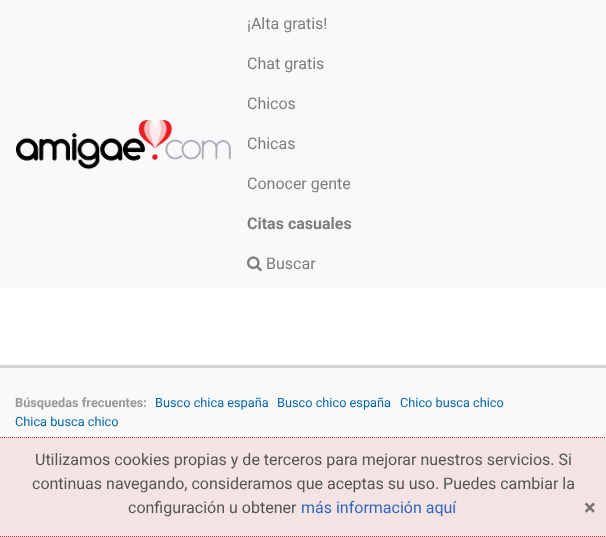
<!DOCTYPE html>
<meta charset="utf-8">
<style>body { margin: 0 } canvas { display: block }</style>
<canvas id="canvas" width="606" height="537"></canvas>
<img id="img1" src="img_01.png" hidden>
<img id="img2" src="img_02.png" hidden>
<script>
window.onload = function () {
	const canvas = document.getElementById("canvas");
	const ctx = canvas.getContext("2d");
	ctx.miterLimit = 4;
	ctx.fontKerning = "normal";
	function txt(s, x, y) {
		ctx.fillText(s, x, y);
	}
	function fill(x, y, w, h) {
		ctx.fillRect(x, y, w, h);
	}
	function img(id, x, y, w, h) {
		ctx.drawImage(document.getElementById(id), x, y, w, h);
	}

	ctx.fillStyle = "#FFFFFF";
	fill(0, 0, 606, 537);
	ctx.fillStyle = "#F8F9FA";
	fill(0, 0, 606, 288);
	img("img1", 16, 119, 215, 51);
	img("img2", 247, 256, 15, 16);
	ctx.fillStyle = "#F9F9F9";
	fill(0, 368, 606, 69);
	ctx.fillStyle = "#D3D3D3";
	fill(0, 365, 606, 3);
	ctx.fillStyle = "#F3E3E3";
	fill(0, 437, 606, 100);
	ctx.beginPath();
	ctx.moveTo(0, 437.5);
	ctx.lineTo(606, 437.5);
	ctx.strokeStyle = "#CC3333";
	ctx.setLineDash([1, 1]);
	ctx.stroke();
	ctx.beginPath();
	ctx.moveTo(0, 536.5);
	ctx.lineTo(606, 536.5);
	ctx.stroke();
	ctx.font = "16px Roboto";
	ctx.fillStyle = "#7C7D7D";
	txt("¡Alta gratis!", 247, 29);
	txt("Chat gratis", 247, 69);
	txt("Chicos", 247, 109);
	txt("Chicas", 247, 149);
	txt("Conocer gente", 247, 189);
	ctx.font = "bold 16px Roboto";
	txt("Citas casuales", 247, 229);
	ctx.font = "16px Roboto";
	txt("Buscar", 266, 269);
	ctx.font = "bold 12.75px Roboto";
	ctx.fillStyle = "#999999";
	txt("Búsquedas frecuentes:", 15, 407);
	ctx.font = "12.75px Roboto";
	ctx.fillStyle = "#0066AA";
	txt("Busco chica españa", 155, 407);
	txt("Busco chico españa", 277, 407);
	txt("Chico busca chico", 400, 407);
	txt("Chica busca chico", 15, 426);
	ctx.font = "16px Roboto";
	ctx.fillStyle = "#555555";
	txt("Utilizamos cookies propias y de terceros para mejorar nuestros servicios. Si", 35, 465);
	txt("continuas navegando, consideramos que aceptas su uso. Puedes cambiar la", 32, 489);
	txt("configuración u obtener", 128, 513);
	ctx.fillStyle = "#3066BE";
	txt("más información aquí", 301, 513);
	ctx.font = "bold 22px Roboto";
	ctx.fillStyle = "#7A7272";
	txt("×", 584, 515);
};
</script>
